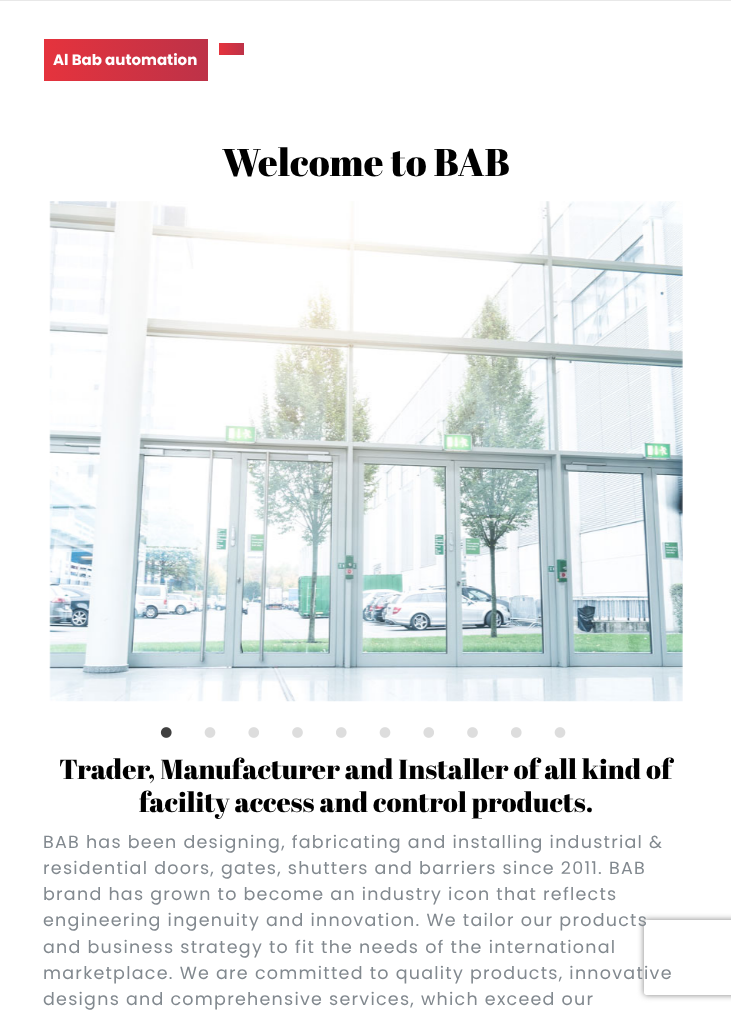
<!DOCTYPE html>
<meta charset="utf-8">
<style>body { margin: 0 } canvas { display: block }</style>
<canvas id="canvas" width="731" height="1012"></canvas>
<img id="img1" src="img_01.png" hidden>
<img id="img2" src="img_02.png" hidden>
<img id="img3" src="img_03.png" hidden>
<img id="img4" src="img_04.png" hidden>
<img id="img5" src="img_05.png" hidden>
<img id="img6" src="img_06.png" hidden>
<script>
window.onload = function () {
	const canvas = document.getElementById("canvas");
	const ctx = canvas.getContext("2d");
	ctx.miterLimit = 4;
	ctx.fontKerning = "normal";
	function txt(s, x, y) {
		ctx.fillText(s, x, y);
	}
	function fill(x, y, w, h) {
		ctx.fillRect(x, y, w, h);
	}
	function img(id, x, y, w, h) {
		ctx.drawImage(document.getElementById(id), x, y, w, h);
	}
	let gradient;

	ctx.fillStyle = "#FFFFFF";
	fill(0, 0, 731, 1012);
	ctx.fillStyle = "#E8E8E8";
	fill(0, 0, 731, 1);
	gradient = ctx.createLinearGradient(219, 49, 244, 49);
	gradient.addColorStop(0, "#E5333D");
	gradient.addColorStop(1, "#BD3248");
	ctx.fillStyle = gradient;
	fill(219, 43, 25, 12);
	gradient = ctx.createLinearGradient(44, 60, 208, 60);
	gradient.addColorStop(0, "#E5333D");
	gradient.addColorStop(1, "#BD3248");
	ctx.fillStyle = gradient;
	fill(44, 39, 164, 42);
	img("img1", 49, 201, 634, 501);
	img("img2", 160, 727, 12, 11);
	img("img3", 204, 727, 12, 11);
	img("img4", 248, 727, 11, 11);
	img("img5", 292, 727, 11, 11);
	img("img6", 336, 727, 11, 11);
	img("img3", 379, 727, 12, 11);
	img("img4", 423, 727, 11, 11);
	img("img5", 467, 727, 11, 11);
	img("img6", 511, 727, 11, 11);
	img("img3", 554, 727, 12, 11);
	ctx.save();
	ctx.beginPath();
	ctx.moveTo(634, 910);
	ctx.lineTo(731, 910);
	ctx.lineTo(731, 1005);
	ctx.lineTo(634, 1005);
	ctx.closePath();
	ctx.moveTo(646.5, 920);
	ctx.lineTo(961.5, 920);
	ctx.bezierCurveTo(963, 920, 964, 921, 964, 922.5);
	ctx.lineTo(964, 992.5);
	ctx.bezierCurveTo(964, 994, 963, 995, 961.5, 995);
	ctx.lineTo(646.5, 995);
	ctx.bezierCurveTo(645, 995, 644, 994, 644, 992.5);
	ctx.lineTo(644, 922.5);
	ctx.bezierCurveTo(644, 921, 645, 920, 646.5, 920);
	ctx.closePath();
	ctx.clip("evenodd");
	ctx.fillStyle = "#808080";
	ctx.filter = "blur(3px)";
	ctx.beginPath();
	ctx.roundRect(644, 920, 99, 75, 2.5);
	ctx.fill();
	ctx.filter = "none";
	ctx.restore();
	ctx.font = "bold 15px Poppins";
	ctx.fillStyle = "#FFFFFF";
	txt("Al Bab automation", 53, 65);
	ctx.font = "38.5px Abril Fatface";
	ctx.fillStyle = "#000000";
	txt("Welcome to BAB", 222, 176);
	ctx.font = "27.7px Abril Fatface";
	txt("Trader, Manufacturer and Installer of all kind of", 59, 779);
	txt("facility access and control products.", 139, 812);
	ctx.letterSpacing = "1.25px";
	ctx.font = "17.5px Poppins";
	ctx.fillStyle = "#82898F";
	txt("BAB has been designing, fabricating and installing industrial &", 43, 848);
	txt("residential doors, gates, shutters and barriers since 2011. BAB", 43, 874);
	txt("brand has grown to become an industry icon that reflects", 43, 900);
	txt("engineering ingenuity and innovation. We tailor our products", 43, 926);
	txt("and business strategy to fit the needs of the international", 43, 953);
	txt("marketplace. We are committed to quality products, innovative", 43, 979);
	txt("designs and comprehensive services, which exceed our", 43, 1005);
};
</script>
